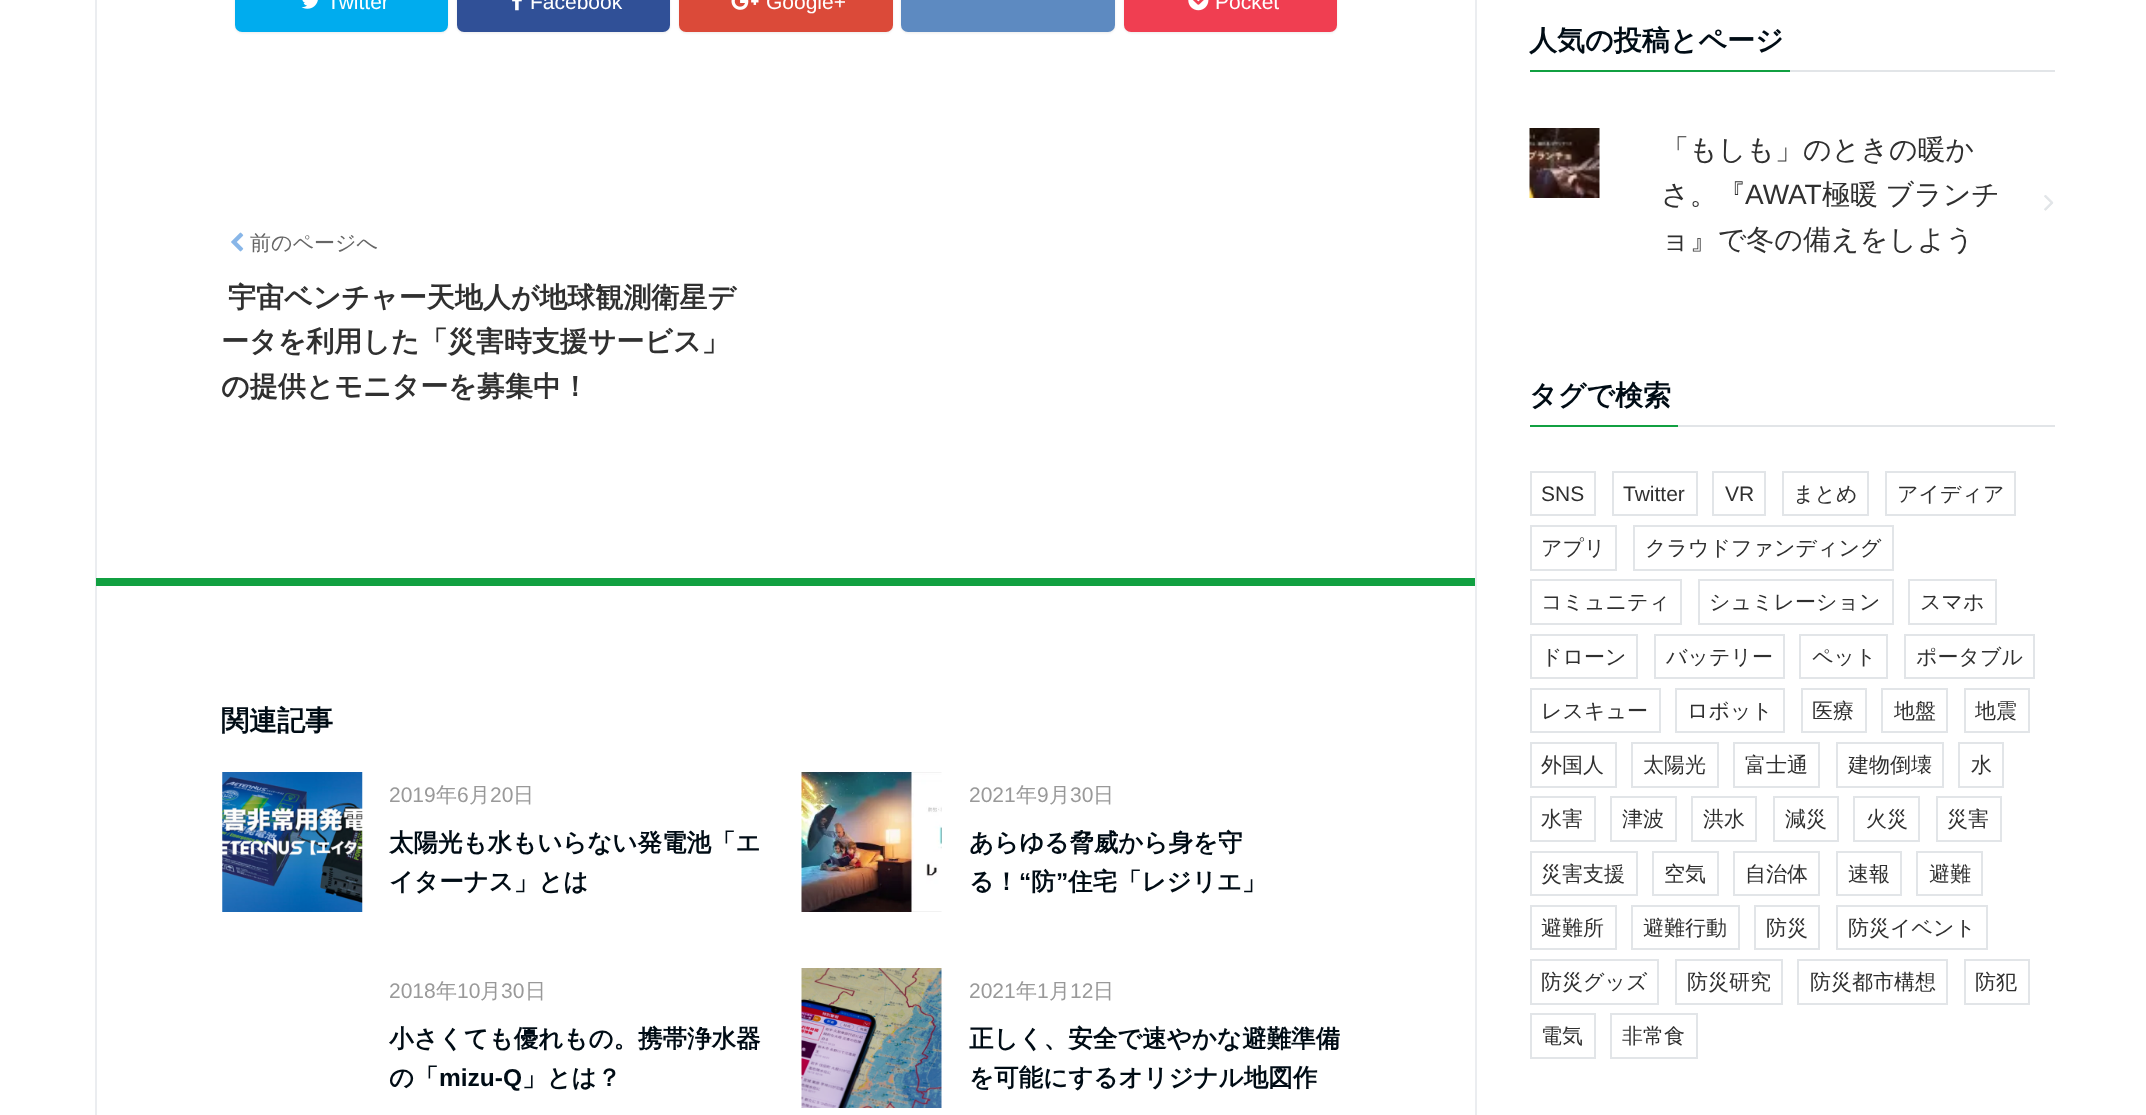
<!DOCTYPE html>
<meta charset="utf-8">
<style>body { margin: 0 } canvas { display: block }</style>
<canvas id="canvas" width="2146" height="1115"></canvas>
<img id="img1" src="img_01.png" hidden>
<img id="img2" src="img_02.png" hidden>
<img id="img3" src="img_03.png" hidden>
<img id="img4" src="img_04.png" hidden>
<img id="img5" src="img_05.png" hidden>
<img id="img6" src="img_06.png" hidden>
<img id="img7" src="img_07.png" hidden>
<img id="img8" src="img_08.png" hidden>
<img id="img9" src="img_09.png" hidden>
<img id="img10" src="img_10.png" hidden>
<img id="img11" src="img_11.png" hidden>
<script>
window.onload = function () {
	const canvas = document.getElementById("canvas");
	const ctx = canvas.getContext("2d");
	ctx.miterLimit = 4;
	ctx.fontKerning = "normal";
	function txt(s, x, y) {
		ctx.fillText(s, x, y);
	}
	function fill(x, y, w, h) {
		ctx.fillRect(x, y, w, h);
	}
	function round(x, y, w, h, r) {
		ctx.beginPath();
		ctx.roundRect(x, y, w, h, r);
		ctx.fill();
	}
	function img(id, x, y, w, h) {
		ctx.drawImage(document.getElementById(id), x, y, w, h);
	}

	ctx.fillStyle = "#FFFFFF";
	fill(0, 0, 2146, 1115);
	ctx.strokeStyle = "#EBEDF0";
	ctx.lineWidth = 2;
	ctx.strokeRect(96, -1, 1380, 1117);
	ctx.fillStyle = "rgba(0, 0, 0, 0.08)";
	ctx.filter = "blur(1px)";
	ctx.beginPath();
	ctx.roundRect(235, -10, 213, 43, 7);
	ctx.fill();
	ctx.filter = "none";
	ctx.fillStyle = "#00ACEE";
	round(235, -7, 213, 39, 7);
	img("img1", 301, 0, 17, 9);
	ctx.fillStyle = "rgba(0, 0, 0, 0.08)";
	ctx.filter = "blur(1px)";
	ctx.beginPath();
	ctx.roundRect(457, -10, 213, 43, 7);
	ctx.fill();
	ctx.filter = "none";
	ctx.fillStyle = "#305097";
	round(457, -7, 213, 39, 7);
	img("img2", 512, 0, 10, 11);
	ctx.fillStyle = "rgba(0, 0, 0, 0.08)";
	ctx.filter = "blur(1px)";
	ctx.beginPath();
	ctx.roundRect(679, -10, 214, 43, 7);
	ctx.fill();
	ctx.filter = "none";
	ctx.fillStyle = "#DB4A39";
	round(679, -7, 214, 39, 7);
	img("img3", 731, 0, 28, 10);
	ctx.fillStyle = "rgba(0, 0, 0, 0.08)";
	ctx.filter = "blur(1px)";
	ctx.beginPath();
	ctx.roundRect(901, -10, 214, 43, 7);
	ctx.fill();
	ctx.filter = "none";
	ctx.fillStyle = "#5D8AC1";
	round(901, -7, 214, 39, 7);
	ctx.fillStyle = "rgba(0, 0, 0, 0.08)";
	ctx.filter = "blur(1px)";
	ctx.beginPath();
	ctx.roundRect(1124, -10, 213, 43, 7);
	ctx.fill();
	ctx.filter = "none";
	ctx.fillStyle = "#F03E51";
	round(1124, -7, 213, 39, 7);
	img("img4", 1188, 0, 21, 11);
	img("img5", 231, 232, 13, 20);
	ctx.fillStyle = "#11A041";
	fill(96, 578, 1379, 8);
	img("img6", 222, 772, 141, 140);
	img("img7", 801, 772, 141, 140);
	img("img8", 801, 968, 141, 140);
	ctx.fillStyle = "#E2E5E8";
	fill(1790, 70, 265, 2);
	ctx.fillStyle = "#11A041";
	fill(1530, 70, 260, 2);
	img("img9", 1529, 128, 71, 70);
	img("img10", 2044, 195, 10, 16);
	img("img11", 2044, 195, 9, 16);
	ctx.fillStyle = "#E2E5E8";
	fill(1678, 425, 377, 2);
	ctx.fillStyle = "#11A041";
	fill(1530, 425, 148, 2);
	ctx.strokeStyle = "#E2E5E8";
	ctx.strokeRect(1531, 472, 64, 43);
	ctx.strokeRect(1613, 472, 84, 43);
	ctx.strokeRect(1713, 472, 52, 43);
	ctx.strokeRect(1783, 472, 85, 43);
	ctx.strokeRect(1886, 472, 129, 43);
	ctx.strokeRect(1531, 526, 85, 44);
	ctx.strokeRect(1634, 526, 259, 44);
	ctx.strokeRect(1531, 580, 150, 44);
	ctx.strokeRect(1699, 580, 194, 44);
	ctx.strokeRect(1909, 580, 87, 44);
	ctx.strokeRect(1531, 635, 106, 43);
	ctx.strokeRect(1655, 635, 129, 43);
	ctx.strokeRect(1800, 635, 87, 43);
	ctx.strokeRect(1905, 635, 129, 43);
	ctx.strokeRect(1531, 689, 129, 43);
	ctx.strokeRect(1676, 689, 108, 43);
	ctx.strokeRect(1802, 689, 64, 43);
	ctx.strokeRect(1882, 689, 65, 43);
	ctx.strokeRect(1965, 689, 64, 43);
	ctx.strokeRect(1531, 743, 85, 44);
	ctx.strokeRect(1632, 743, 86, 44);
	ctx.strokeRect(1734, 743, 85, 44);
	ctx.strokeRect(1837, 743, 106, 44);
	ctx.strokeRect(1959, 743, 44, 44);
	ctx.strokeRect(1531, 797, 64, 44);
	ctx.strokeRect(1611, 797, 65, 44);
	ctx.strokeRect(1692, 797, 64, 44);
	ctx.strokeRect(1774, 797, 64, 44);
	ctx.strokeRect(1854, 797, 65, 44);
	ctx.strokeRect(1937, 797, 64, 44);
	ctx.strokeRect(1531, 852, 106, 43);
	ctx.strokeRect(1653, 852, 65, 43);
	ctx.strokeRect(1734, 852, 85, 43);
	ctx.strokeRect(1837, 852, 64, 43);
	ctx.strokeRect(1917, 852, 65, 43);
	ctx.strokeRect(1531, 906, 85, 43);
	ctx.strokeRect(1632, 906, 107, 43);
	ctx.strokeRect(1755, 906, 64, 43);
	ctx.strokeRect(1837, 906, 150, 43);
	ctx.strokeRect(1531, 960, 127, 44);
	ctx.strokeRect(1676, 960, 106, 44);
	ctx.strokeRect(1798, 960, 149, 44);
	ctx.strokeRect(1965, 960, 64, 44);
	ctx.strokeRect(1531, 1014, 64, 44);
	ctx.strokeRect(1611, 1014, 86, 44);
	ctx.font = "21px Liberation Sans";
	ctx.fillStyle = "#FFFFFF";
	txt("Twitter", 327, 9);
	txt("Facebook", 530, 9);
	txt("Google+", 766, 9);
	txt("Pocket", 1215, 9);
	ctx.font = "500 21px WenQuanYi Zen Hei";
	ctx.fillStyle = "#666666";
	txt("前のページへ", 250, 250);
	ctx.font = "bold 28px WenQuanYi Zen Hei";
	ctx.fillStyle = "#303030";
	txt("宇宙ベンチャー天地人が地球観測衛星デ", 228, 307);
	txt("ータを利用した「災害時支援サービス」", 221, 351);
	txt("の提供とモニターを募集中！", 221, 396);
	ctx.fillStyle = "#000C15";
	txt("関連記事", 221, 730);
	ctx.font = "21px Liberation Sans";
	ctx.fillStyle = "#999999";
	txt("2019", 389, 802);
	ctx.font = "500 21px WenQuanYi Zen Hei";
	txt("年", 436, 802);
	ctx.font = "21px Liberation Sans";
	txt("6", 457, 802);
	ctx.font = "500 21px WenQuanYi Zen Hei";
	txt("月", 469, 802);
	ctx.font = "21px Liberation Sans";
	txt("20", 490, 802);
	ctx.font = "500 21px WenQuanYi Zen Hei";
	txt("日", 513, 802);
	ctx.font = "bold 24.5px WenQuanYi Zen Hei";
	ctx.fillStyle = "#000C15";
	txt("太陽光も水もいらない発電池「エ", 389, 851);
	txt("イターナス」とは", 389, 890);
	ctx.font = "21px Liberation Sans";
	ctx.fillStyle = "#999999";
	txt("2021", 969, 802);
	ctx.font = "500 21px WenQuanYi Zen Hei";
	txt("年", 1016, 802);
	ctx.font = "21px Liberation Sans";
	txt("9", 1037, 802);
	ctx.font = "500 21px WenQuanYi Zen Hei";
	txt("月", 1049, 802);
	ctx.font = "21px Liberation Sans";
	txt("30", 1070, 802);
	ctx.font = "500 21px WenQuanYi Zen Hei";
	txt("日", 1093, 802);
	ctx.font = "bold 24.5px WenQuanYi Zen Hei";
	ctx.fillStyle = "#000C15";
	txt("あらゆる脅威から身を守", 969, 851);
	txt("る！", 969, 890);
	ctx.font = "bold 24.5px Liberation Sans";
	txt("“", 1019, 890);
	ctx.font = "bold 24.5px WenQuanYi Zen Hei";
	txt("防", 1031, 890);
	ctx.font = "bold 24.5px Liberation Sans";
	txt("”", 1056, 890);
	ctx.font = "bold 24.5px WenQuanYi Zen Hei";
	txt("住宅「レジリエ」", 1068, 890);
	ctx.font = "21px Liberation Sans";
	ctx.fillStyle = "#999999";
	txt("2018", 389, 998);
	ctx.font = "500 21px WenQuanYi Zen Hei";
	txt("年", 436, 998);
	ctx.font = "21px Liberation Sans";
	txt("10", 457, 998);
	ctx.font = "500 21px WenQuanYi Zen Hei";
	txt("月", 480, 998);
	ctx.font = "21px Liberation Sans";
	txt("30", 501, 998);
	ctx.font = "500 21px WenQuanYi Zen Hei";
	txt("日", 525, 998);
	ctx.font = "bold 24.5px WenQuanYi Zen Hei";
	ctx.fillStyle = "#000C15";
	txt("小さくても優れもの。携帯浄水器", 389, 1047);
	txt("の「", 389, 1086);
	ctx.font = "bold 24.5px Liberation Sans";
	txt("mizu-Q", 439, 1086);
	ctx.font = "bold 24.5px WenQuanYi Zen Hei";
	txt("」とは？", 522, 1086);
	ctx.font = "21px Liberation Sans";
	ctx.fillStyle = "#999999";
	txt("2021", 969, 998);
	ctx.font = "500 21px WenQuanYi Zen Hei";
	txt("年", 1016, 998);
	ctx.font = "21px Liberation Sans";
	txt("1", 1037, 998);
	ctx.font = "500 21px WenQuanYi Zen Hei";
	txt("月", 1049, 998);
	ctx.font = "21px Liberation Sans";
	txt("12", 1070, 998);
	ctx.font = "500 21px WenQuanYi Zen Hei";
	txt("日", 1093, 998);
	ctx.font = "bold 24.5px WenQuanYi Zen Hei";
	ctx.fillStyle = "#000C15";
	txt("正しく、安全で速やかな避難準備", 969, 1047);
	txt("を可能にするオリジナル地図作", 969, 1086);
	ctx.font = "bold 28px WenQuanYi Zen Hei";
	txt("人気の投稿とページ", 1529, 50);
	ctx.font = "500 28px WenQuanYi Zen Hei";
	ctx.fillStyle = "#303030";
	txt("「もしも」のときの暖か", 1661, 159);
	txt("さ。『", 1661, 204);
	ctx.font = "28px Liberation Sans";
	txt("AWAT", 1745, 204);
	ctx.wordSpacing = "-1px";
	ctx.font = "500 28px WenQuanYi Zen Hei";
	txt("極暖 ブランチ", 1822, 204);
	ctx.wordSpacing = "0px";
	txt("ョ』で冬の備えをしよう", 1661, 249);
	ctx.font = "bold 28px WenQuanYi Zen Hei";
	ctx.fillStyle = "#000C15";
	txt("タグで検索", 1529, 405);
	ctx.font = "21px Liberation Sans";
	ctx.fillStyle = "#303030";
	txt("SNS", 1541, 501);
	txt("Twitter", 1623, 501);
	txt("VR", 1725, 501);
	ctx.font = "500 21px WenQuanYi Zen Hei";
	txt("まとめ", 1793, 501);
	txt("アイディア", 1897, 501);
	txt("アプリ", 1541, 555);
	txt("クラウドファンディング", 1645, 555);
	txt("コミュニティ", 1541, 609);
	txt("シュミレーション", 1709, 609);
	txt("スマホ", 1920, 609);
	txt("ドローン", 1541, 664);
	txt("バッテリー", 1666, 664);
	txt("ペット", 1812, 664);
	txt("ポータブル", 1916, 664);
	txt("レスキュー", 1541, 718);
	txt("ロボット", 1687, 718);
	txt("医療", 1812, 718);
	txt("地盤", 1894, 718);
	txt("地震", 1975, 718);
	txt("外国人", 1541, 772);
	txt("太陽光", 1643, 772);
	txt("富士通", 1745, 772);
	txt("建物倒壊", 1848, 772);
	txt("水", 1971, 772);
	txt("水害", 1541, 826);
	txt("津波", 1622, 826);
	txt("洪水", 1703, 826);
	txt("減災", 1785, 826);
	txt("火災", 1866, 826);
	txt("災害", 1947, 826);
	txt("災害支援", 1541, 881);
	txt("空気", 1664, 881);
	txt("自治体", 1745, 881);
	txt("速報", 1848, 881);
	txt("避難", 1929, 881);
	txt("避難所", 1541, 935);
	txt("避難行動", 1643, 935);
	txt("防災", 1766, 935);
	txt("防災イベント", 1848, 935);
	txt("防災グッズ", 1541, 989);
	txt("防災研究", 1687, 989);
	txt("防災都市構想", 1810, 989);
	txt("防犯", 1975, 989);
	txt("電気", 1541, 1043);
	txt("非常食", 1622, 1043);
};
</script>
